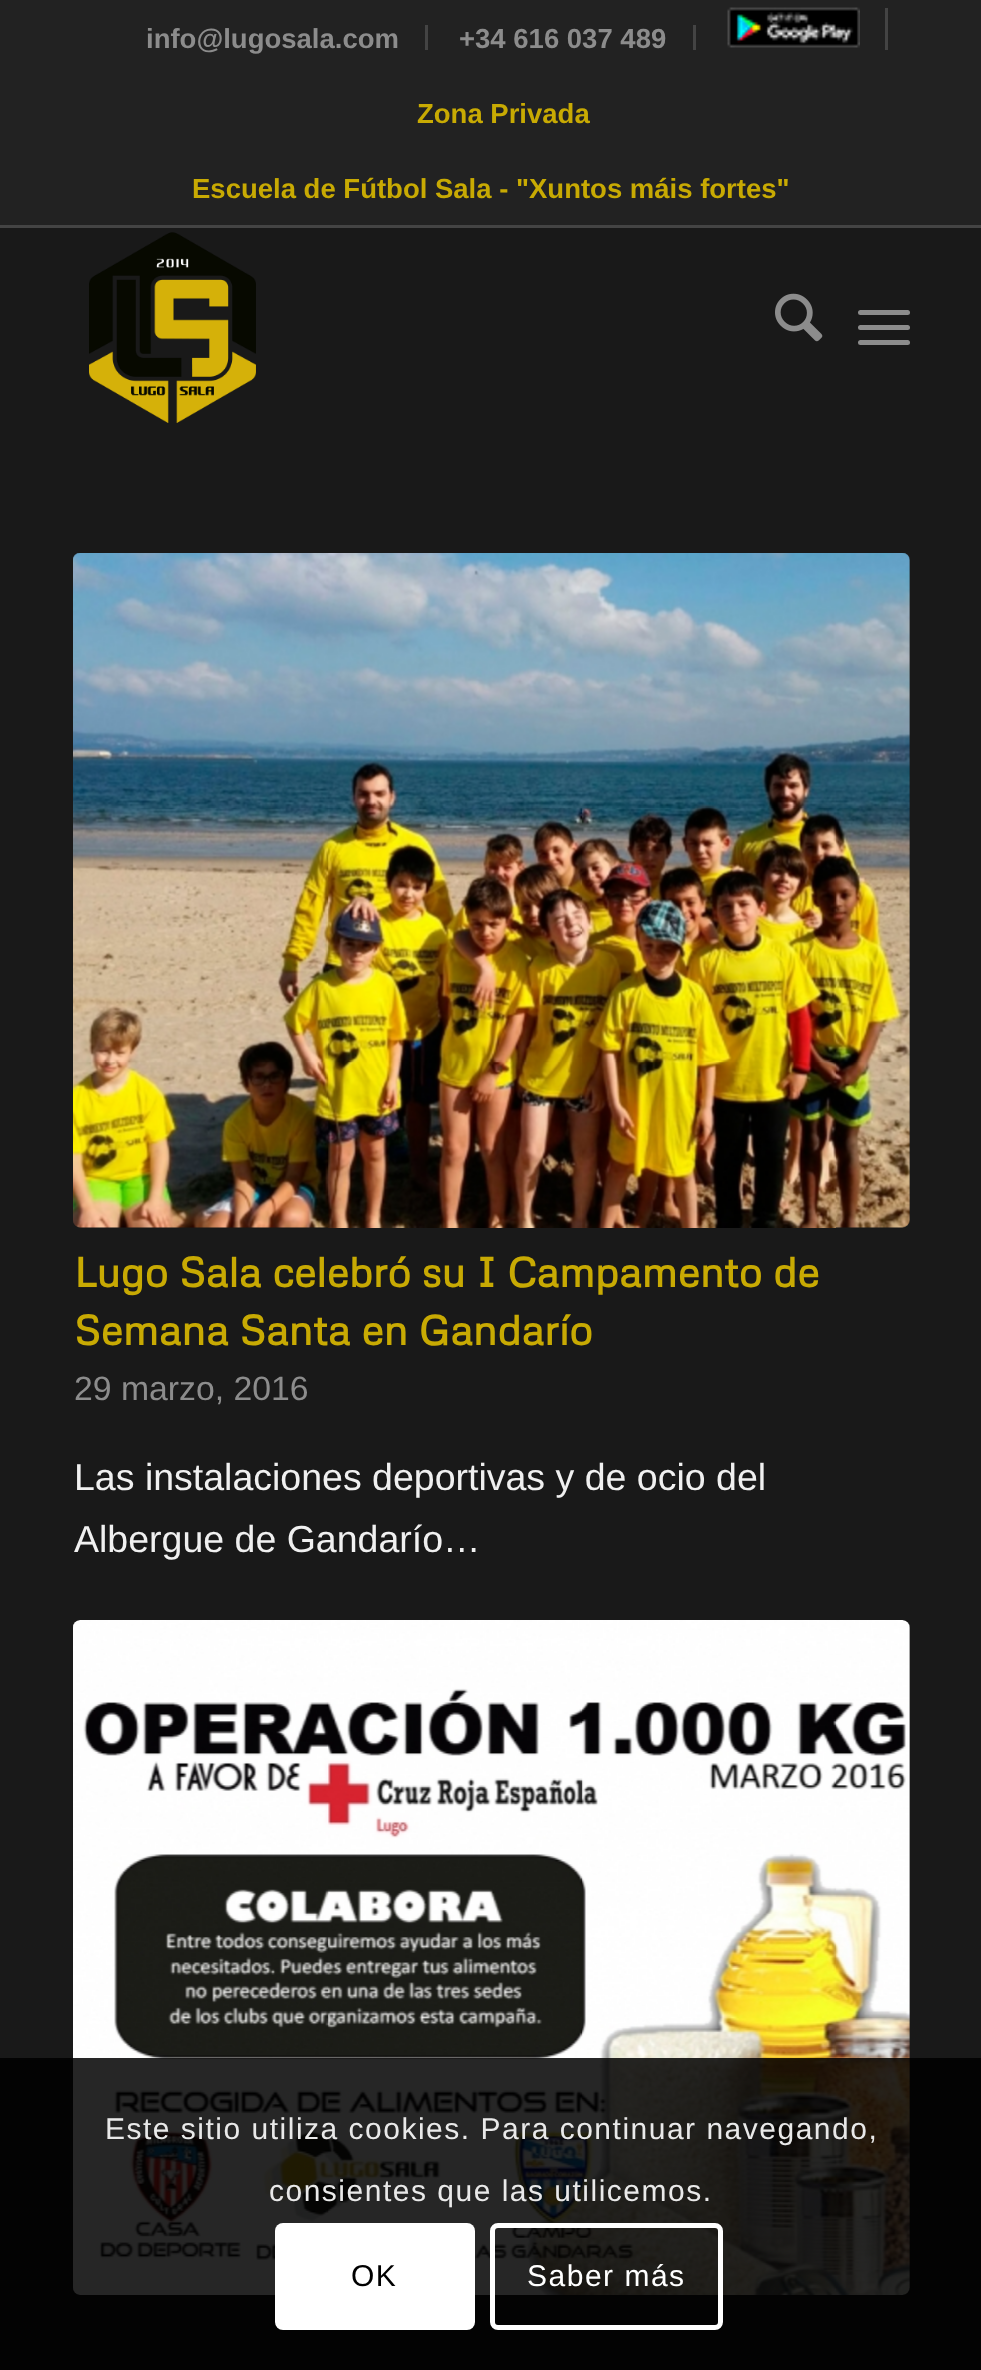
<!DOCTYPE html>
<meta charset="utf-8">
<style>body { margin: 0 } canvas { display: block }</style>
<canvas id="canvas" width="981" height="2370"></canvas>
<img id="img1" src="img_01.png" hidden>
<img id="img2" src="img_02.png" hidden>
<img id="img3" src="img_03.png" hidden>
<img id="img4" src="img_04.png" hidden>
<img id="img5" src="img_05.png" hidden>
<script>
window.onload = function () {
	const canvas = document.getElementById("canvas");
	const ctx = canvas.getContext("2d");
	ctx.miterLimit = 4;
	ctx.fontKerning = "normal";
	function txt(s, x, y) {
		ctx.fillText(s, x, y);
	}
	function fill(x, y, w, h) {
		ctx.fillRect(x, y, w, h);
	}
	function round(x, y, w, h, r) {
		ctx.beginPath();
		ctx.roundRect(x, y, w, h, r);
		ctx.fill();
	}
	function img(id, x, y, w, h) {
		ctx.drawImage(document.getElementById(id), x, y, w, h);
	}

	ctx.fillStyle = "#191919";
	fill(0, 0, 981, 2370);
	ctx.fillStyle = "#222222";
	fill(0, 0, 981, 225);
	ctx.fillStyle = "#444444";
	fill(0, 225, 981, 3);
	fill(425, 25, 3, 25);
	fill(693, 25, 3, 25);
	fill(885, 8, 3, 42);
	img("img1", 727, 7, 133, 41);
	img("img2", 89, 232, 167, 191);
	img("img3", 775, 293, 48, 49);
	ctx.fillStyle = "#8C8C8C";
	round(858, 325, 52, 5, 2.5);
	round(858, 310, 52, 5, 2.5);
	round(858, 340, 52, 5, 2.5);
	img("img4", 73, 553, 837, 675);
	img("img5", 73, 1620, 837, 675);
	ctx.fillStyle = "rgba(0, 0, 0, 0.85)";
	fill(0, 2058, 981, 312);
	ctx.fillStyle = "#FFFFFF";
	round(275, 2223, 200, 107, 8);
	ctx.beginPath();
	ctx.roundRect(492.5, 2225.5, 228, 102, 5.5);
	ctx.strokeStyle = "#FFFFFF";
	ctx.lineWidth = 5;
	ctx.stroke();
	ctx.font = "bold 27.5px Liberation Sans";
	ctx.fillStyle = "#8C8C8C";
	txt("info@lugosala.com", 146, 48);
	txt("+34 616 037 489", 459, 48);
	ctx.fillStyle = "#C8AA03";
	txt("Zona Privada", 417, 123);
	txt("Escuela de Fútbol Sala - \"Xuntos máis fortes\"", 192, 198);
	ctx.font = "bold 41.25px Metrophobic";
	txt("Lugo Sala celebró su I Campamento de", 74, 1287);
	txt("Semana Santa en Gandarío", 74, 1345);
	ctx.font = "33.75px Liberation Sans";
	ctx.fillStyle = "#8C8C8C";
	txt("29 marzo, 2016", 74, 1400);
	ctx.font = "37.5px Liberation Sans";
	ctx.fillStyle = "#F0F0F0";
	txt("Las instalaciones deportivas y de ocio del", 74, 1490);
	txt("Albergue de Gandarío…", 74, 1552);
	ctx.letterSpacing = "1.5px";
	ctx.font = "30px Liberation Sans";
	ctx.fillStyle = "#E9E9E9";
	txt("Este sitio utiliza cookies. Para continuar navegando,", 105, 2139);
	txt("consientes que las utilicemos.", 269, 2201);
	ctx.fillStyle = "#000000";
	txt("OK", 351, 2286);
	ctx.fillStyle = "#FFFFFF";
	txt("Saber más", 527, 2286);
};
</script>
